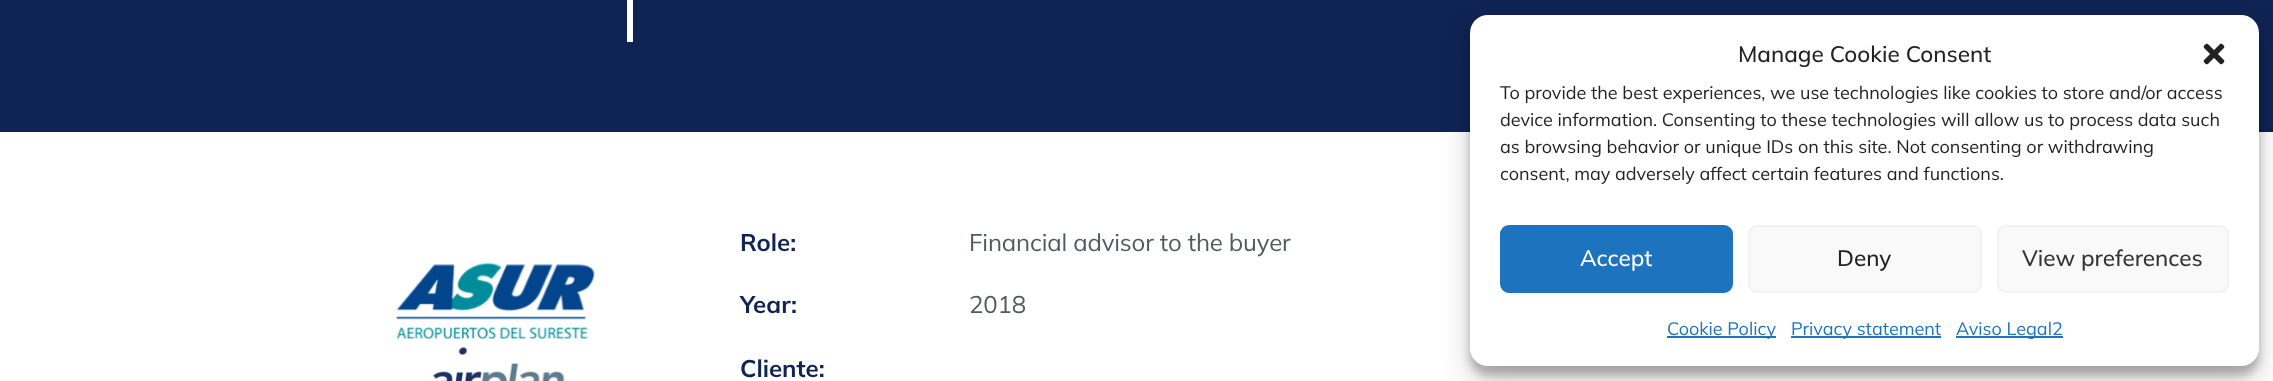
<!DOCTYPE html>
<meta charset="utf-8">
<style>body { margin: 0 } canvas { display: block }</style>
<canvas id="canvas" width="2273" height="381"></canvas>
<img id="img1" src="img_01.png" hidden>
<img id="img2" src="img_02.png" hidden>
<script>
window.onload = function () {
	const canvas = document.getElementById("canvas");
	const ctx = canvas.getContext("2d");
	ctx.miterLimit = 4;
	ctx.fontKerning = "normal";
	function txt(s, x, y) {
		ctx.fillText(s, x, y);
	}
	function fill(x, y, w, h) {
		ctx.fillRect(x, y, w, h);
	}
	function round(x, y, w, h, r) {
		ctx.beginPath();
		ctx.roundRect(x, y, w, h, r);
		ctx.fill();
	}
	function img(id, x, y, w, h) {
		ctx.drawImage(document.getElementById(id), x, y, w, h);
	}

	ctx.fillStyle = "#FFFFFF";
	fill(0, 0, 2273, 381);
	ctx.fillStyle = "#102454";
	fill(0, 0, 2273, 132);
	ctx.fillStyle = "#FFFFFF";
	fill(627, 0, 6, 42);
	img("img1", 395, 262, 200, 119);
	ctx.fillStyle = "rgba(0, 0, 0, 0.23)";
	ctx.filter = "blur(4.5px)";
	ctx.beginPath();
	ctx.roundRect(1470, 24, 789, 351, 18);
	ctx.fill();
	ctx.filter = "none";
	ctx.fillStyle = "rgba(0, 0, 0, 0.19)";
	ctx.filter = "blur(15px)";
	ctx.beginPath();
	ctx.roundRect(1470, 30, 789, 351, 18);
	ctx.fill();
	ctx.filter = "none";
	ctx.fillStyle = "#FFFFFF";
	round(1470, 15, 789, 351, 18);
	img("img2", 2203, 43, 22, 22);
	ctx.fillStyle = "#1E73BE";
	ctx.beginPath();
	ctx.roundRect(1501, 226, 231, 66, 8);
	ctx.fill();
	ctx.strokeStyle = "#1E73BE";
	ctx.lineWidth = 2;
	ctx.stroke();
	ctx.fillStyle = "#F9F9F9";
	ctx.beginPath();
	ctx.roundRect(1749, 226, 232, 66, 8);
	ctx.fill();
	ctx.strokeStyle = "#F2F2F2";
	ctx.stroke();
	ctx.beginPath();
	ctx.roundRect(1998, 226, 230, 66, 8);
	ctx.fill();
	ctx.stroke();
	ctx.fillStyle = "#1E73BE";
	fill(1667, 336, 109, 2);
	fill(1791, 336, 150, 2);
	fill(1956, 336, 107, 2);
	ctx.font = "bold 24px Mulish";
	ctx.fillStyle = "#102454";
	txt("Role:", 740, 251);
	ctx.letterSpacing = "-0.15px";
	ctx.font = "24px Mulish";
	ctx.fillStyle = "#54595F";
	txt("Financial advisor to the buyer", 969, 251);
	ctx.letterSpacing = "0px";
	ctx.font = "bold 24px Mulish";
	ctx.fillStyle = "#102454";
	txt("Year:", 740, 313);
	ctx.letterSpacing = "-0.15px";
	ctx.font = "24px Mulish";
	ctx.fillStyle = "#54595F";
	txt("2018", 969, 313);
	ctx.letterSpacing = "0px";
	ctx.font = "bold 24px Mulish";
	ctx.fillStyle = "#102454";
	txt("Cliente:", 740, 377);
	ctx.font = "500 22.5px Mulish";
	ctx.fillStyle = "#222222";
	txt("Manage Cookie Consent", 1738, 62);
	ctx.font = "18px Mulish";
	txt("To provide the best experiences, we use technologies like cookies to store and/or access", 1500, 99);
	txt("device information. Consenting to these technologies will allow us to process data such", 1500, 126);
	txt("as browsing behavior or unique IDs on this site. Not consenting or withdrawing", 1500, 153);
	txt("consent, may adversely affect certain features and functions.", 1500, 180);
	ctx.font = "500 22.5px Mulish";
	ctx.fillStyle = "#FFFFFF";
	txt("Accept", 1580, 266);
	ctx.fillStyle = "#222222";
	txt("Deny", 1837, 266);
	ctx.fillStyle = "#333333";
	txt("View preferences", 2022, 266);
	ctx.font = "18px Mulish";
	ctx.fillStyle = "#1E73BE";
	txt("Cookie Policy", 1667, 335);
	txt("Privacy statement", 1791, 335);
	txt("Aviso Legal2", 1956, 335);
};
</script>
